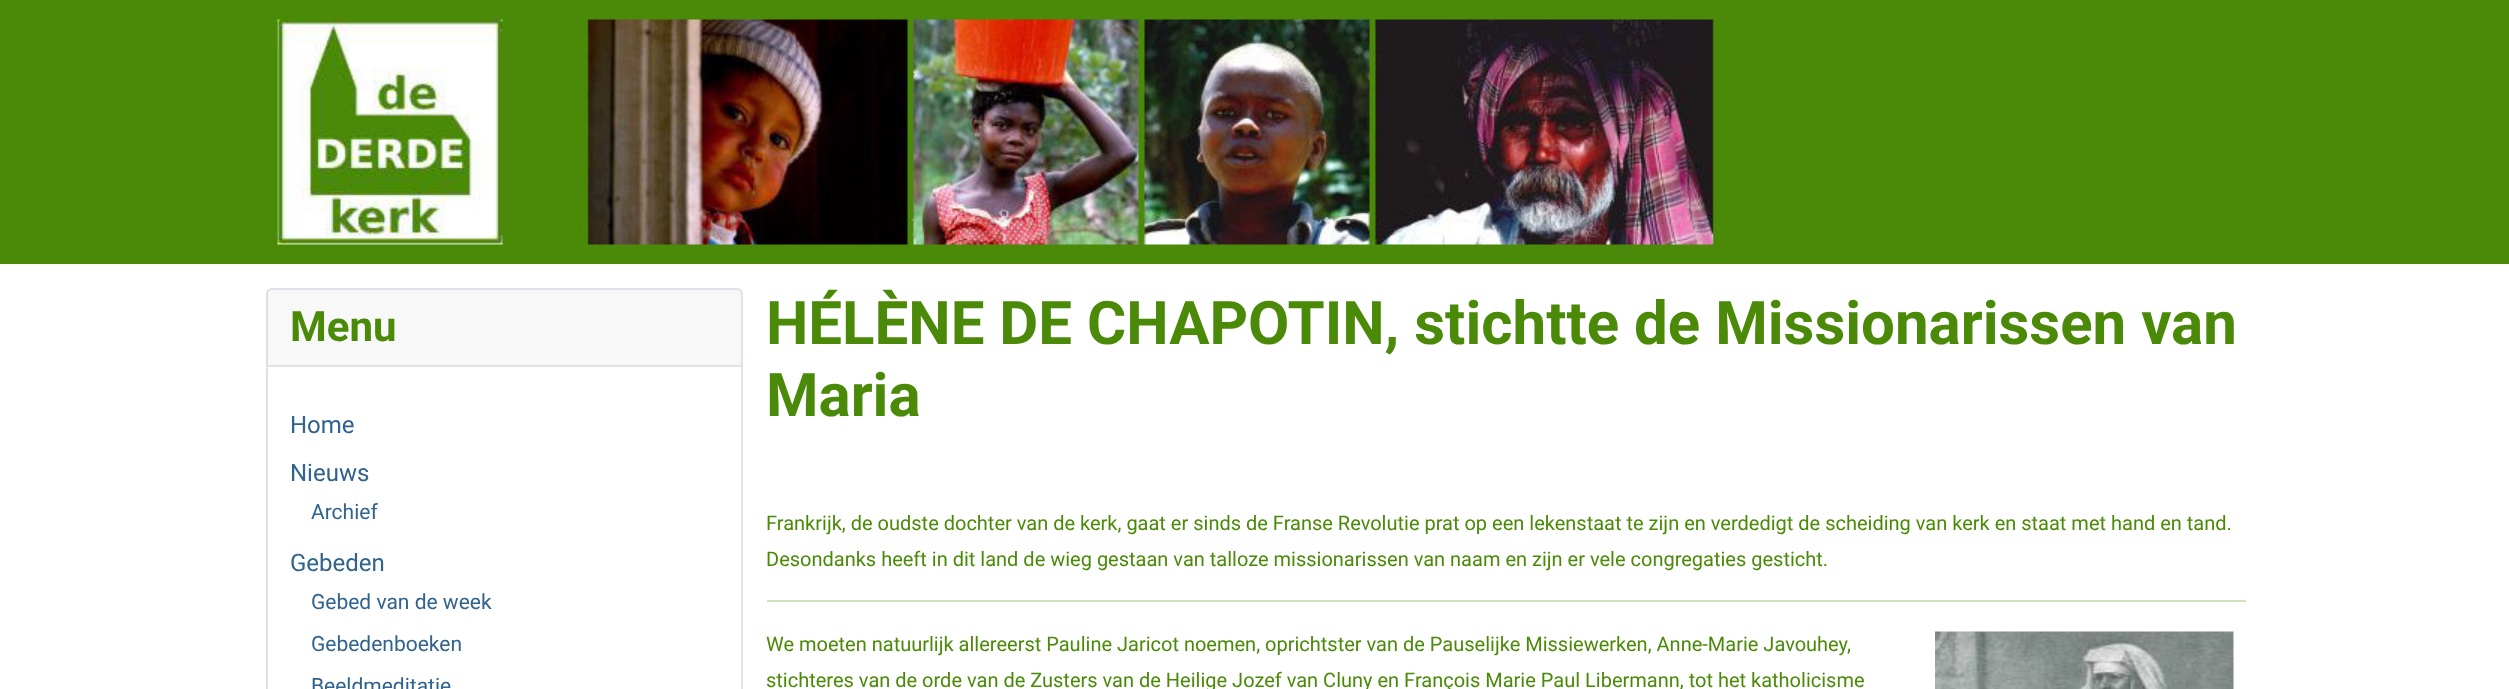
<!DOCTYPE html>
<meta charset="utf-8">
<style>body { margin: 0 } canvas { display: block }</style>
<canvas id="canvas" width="2509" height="689"></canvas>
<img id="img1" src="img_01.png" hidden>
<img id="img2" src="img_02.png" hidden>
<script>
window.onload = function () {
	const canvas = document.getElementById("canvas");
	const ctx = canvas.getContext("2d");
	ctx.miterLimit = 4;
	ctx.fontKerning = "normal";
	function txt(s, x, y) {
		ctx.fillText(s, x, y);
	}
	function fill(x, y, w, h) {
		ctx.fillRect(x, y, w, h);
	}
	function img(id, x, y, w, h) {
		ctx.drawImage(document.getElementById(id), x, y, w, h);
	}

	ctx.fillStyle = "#FFFFFF";
	fill(0, 0, 2509, 689);
	ctx.fillStyle = "#4B8A08";
	fill(0, 0, 2509, 264);
	img("img1", 277, 19, 1440, 226);
	ctx.beginPath();
	ctx.roundRect(267, 289, 475, 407, 5);
	ctx.strokeStyle = "#DFE3E7";
	ctx.lineWidth = 2;
	ctx.stroke();
	ctx.fillStyle = "rgba(34, 38, 42, 0.03)";
	fill(267, 290, 474, 75);
	ctx.fillStyle = "#DFE3E7";
	fill(267, 365, 474, 2);
	ctx.fillStyle = "#D2E2C1";
	fill(767, 600, 1479, 2);
	img("img2", 1935, 631, 299, 58);
	ctx.font = "bold 42px Roboto";
	ctx.fillStyle = "#4B8A08";
	txt("Menu", 290, 341);
	ctx.font = "24px Roboto";
	ctx.fillStyle = "#30638D";
	txt("Home", 290, 433);
	txt("Nieuws", 290, 481);
	ctx.font = "21px Roboto";
	txt("Archief", 311, 519);
	ctx.font = "24px Roboto";
	txt("Gebeden", 290, 571);
	ctx.font = "21px Roboto";
	txt("Gebed van de week", 311, 609);
	txt("Gebedenboeken", 311, 651);
	txt("Beeldmeditatie", 311, 693);
	ctx.font = "bold 60px Roboto";
	ctx.fillStyle = "#4B8A08";
	txt("HÉLÈNE DE CHAPOTIN, stichtte de Missionarissen van", 766, 344);
	txt("Maria", 766, 416);
	ctx.font = "20px Roboto";
	txt("Frankrijk, de oudste dochter van de kerk, gaat er sinds de Franse Revolutie prat op een lekenstaat te zijn en verdedigt de scheiding van kerk en staat met hand en tand.", 766, 530);
	txt("Desondanks heeft in dit land de wieg gestaan van talloze missionarissen van naam en zijn er vele congregaties gesticht.", 766, 566);
	txt("We moeten natuurlijk allereerst Pauline Jaricot noemen, oprichtster van de Pauselijke Missiewerken, Anne-Marie Javouhey,", 766, 651);
	txt("stichteres van de orde van de Zusters van de Heilige Jozef van Cluny en François Marie Paul Libermann, tot het katholicisme", 766, 687);
};
</script>
